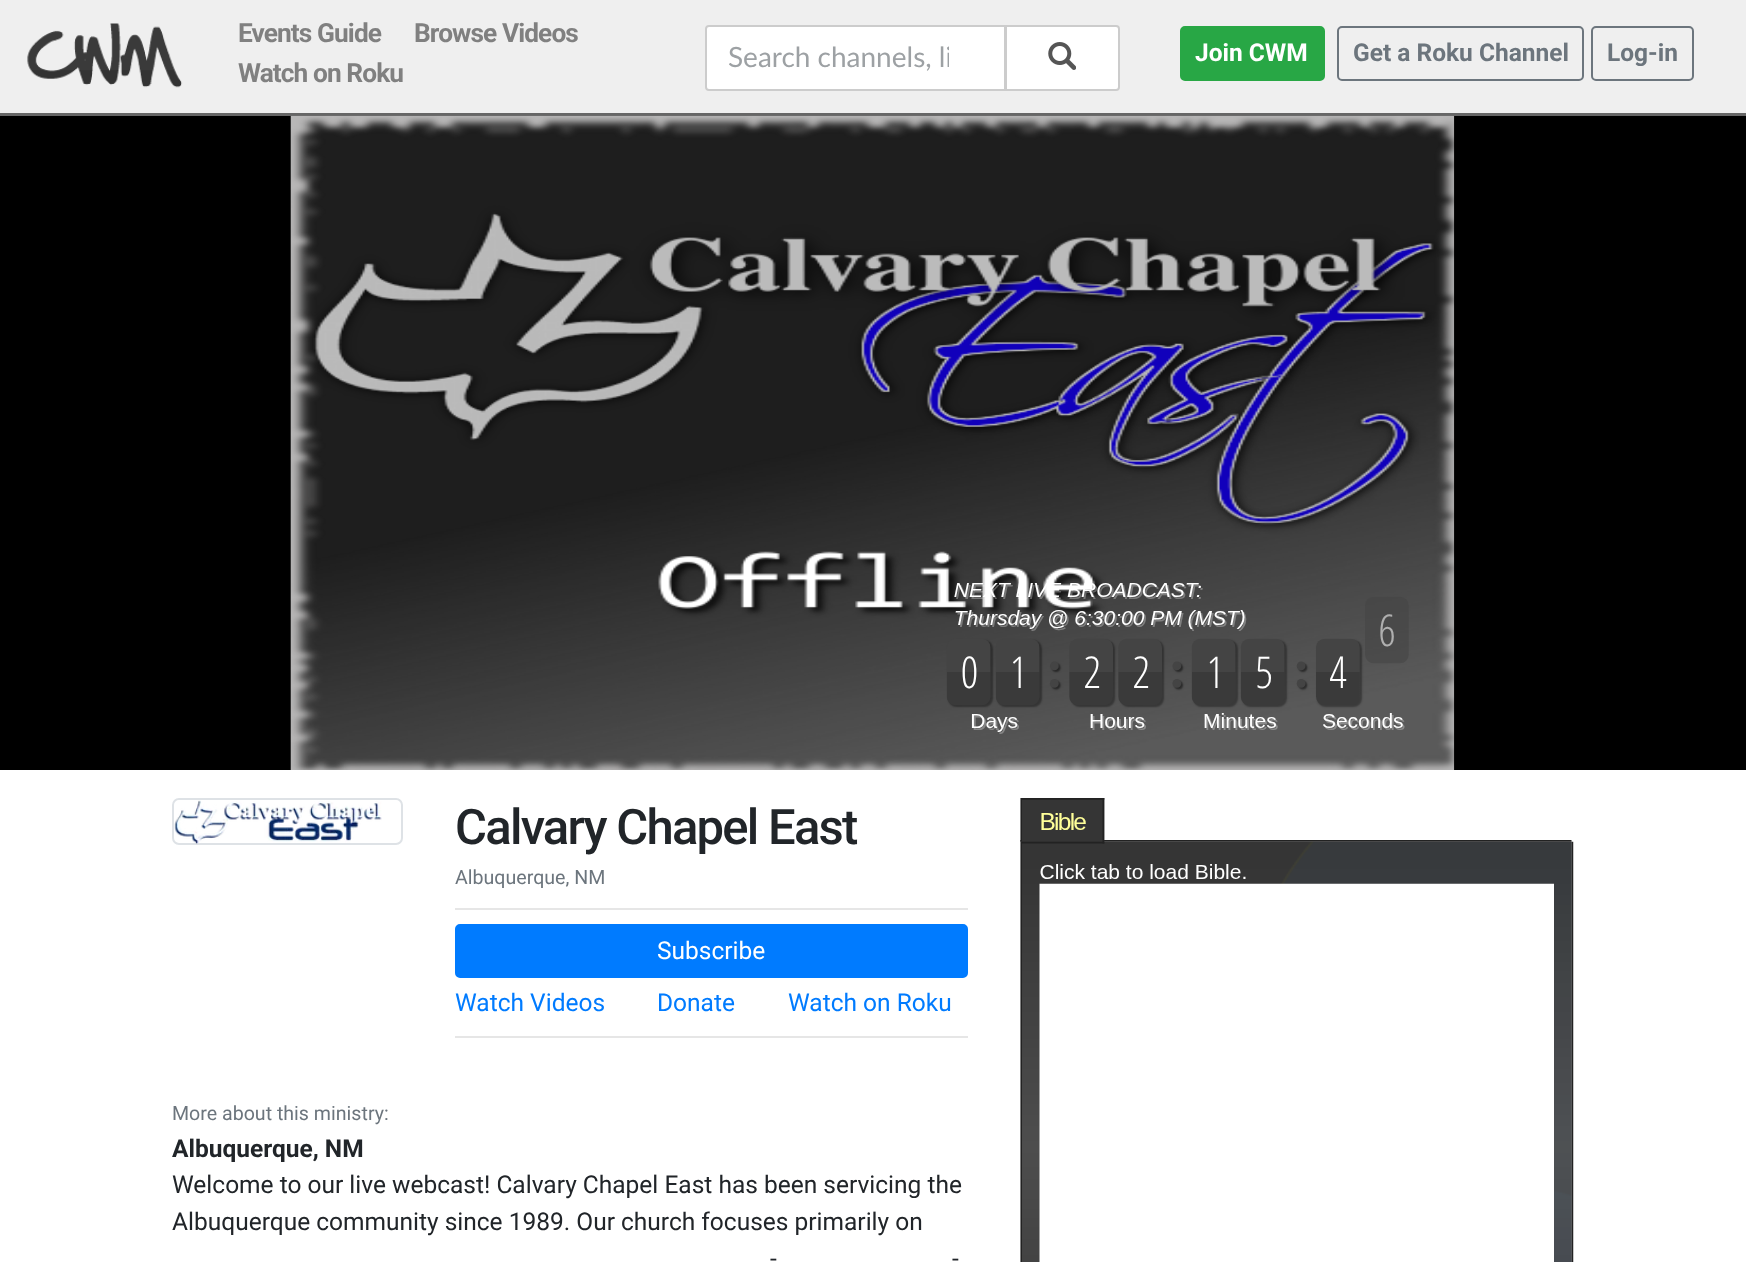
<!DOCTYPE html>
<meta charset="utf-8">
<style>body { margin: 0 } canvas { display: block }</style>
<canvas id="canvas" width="1746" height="1262"></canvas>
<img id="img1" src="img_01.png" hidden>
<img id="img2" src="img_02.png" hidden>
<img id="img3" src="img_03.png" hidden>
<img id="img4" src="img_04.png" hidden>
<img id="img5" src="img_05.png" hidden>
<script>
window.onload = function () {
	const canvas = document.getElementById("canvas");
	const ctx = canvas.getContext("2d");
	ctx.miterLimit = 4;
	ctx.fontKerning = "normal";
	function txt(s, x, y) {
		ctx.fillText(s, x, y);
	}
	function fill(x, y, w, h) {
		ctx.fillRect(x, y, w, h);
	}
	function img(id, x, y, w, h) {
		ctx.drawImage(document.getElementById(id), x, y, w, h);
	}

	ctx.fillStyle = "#FFFFFF";
	fill(0, 0, 1746, 1262);
	ctx.fillStyle = "#EFEFEF";
	fill(0, 0, 1746, 113);
	img("img1", 27, 23, 156, 65);
	ctx.fillStyle = "#FFFFFF";
	ctx.beginPath();
	ctx.roundRect(1006, 26, 113, 64, [0, 3, 3, 0]);
	ctx.fill();
	ctx.strokeStyle = "#CCCCCC";
	ctx.lineWidth = 2;
	ctx.stroke();
	ctx.beginPath();
	ctx.roundRect(706, 26, 299, 64, [3, 0, 0, 3]);
	ctx.fill();
	ctx.stroke();
	img("img2", 1048, 42, 28, 28);
	ctx.fillStyle = "#28A745";
	ctx.beginPath();
	ctx.roundRect(1181, 27, 143, 53, 4);
	ctx.fill();
	ctx.strokeStyle = "#28A745";
	ctx.stroke();
	ctx.beginPath();
	ctx.roundRect(1338, 27, 245, 53, 4);
	ctx.strokeStyle = "#6C757D";
	ctx.stroke();
	ctx.beginPath();
	ctx.roundRect(1592, 27, 101, 53, 4);
	ctx.stroke();
	ctx.fillStyle = "#666666";
	fill(0, 113, 1746, 3);
	ctx.fillStyle = "#000000";
	fill(0, 116, 1746, 654);
	img("img3", 290, 115, 1165, 655);
	ctx.beginPath();
	ctx.roundRect(173, 799, 229, 45, 6);
	ctx.strokeStyle = "#DEE2E6";
	ctx.stroke();
	img("img4", 174, 800, 208, 44);
	ctx.fillStyle = "#E6E6E6";
	fill(455, 908, 513, 2);
	ctx.fillStyle = "#007BFF";
	ctx.beginPath();
	ctx.roundRect(456, 925, 511, 52, 4);
	ctx.fill();
	ctx.strokeStyle = "#007BFF";
	ctx.stroke();
	ctx.fillStyle = "#E6E6E6";
	fill(455, 1036, 513, 2);
	img("img5", 1020, 798, 554, 464);
	ctx.letterSpacing = "-0.9px";
	ctx.font = "bold 26.25px Roboto";
	ctx.fillStyle = "#808080";
	txt("Events Guide", 238, 42);
	txt("Browse Videos", 414, 42);
	txt("Watch on Roku", 238, 82);
	ctx.save();
	ctx.beginPath();
	ctx.rect(728, 40, 221, 34);
	ctx.clip();
	ctx.letterSpacing = "0px";
	ctx.font = "28px Lato";
	ctx.fillStyle = "#9DA1A4";
	txt("Search channels, li", 728, 67);
	ctx.restore();
	ctx.letterSpacing = "0px";
	ctx.font = "bold 24.5px Roboto";
	ctx.fillStyle = "#FFFFFF";
	txt("Join CWM", 1195, 61);
	ctx.fillStyle = "#6C757D";
	txt("Get a Roku Channel", 1353, 61);
	txt("Log-in", 1607, 61);
	ctx.letterSpacing = "-1.75px";
	ctx.font = "500 49px Roboto";
	ctx.fillStyle = "#212529";
	txt("Calvary Chapel East", 455, 844);
	ctx.letterSpacing = "0px";
	ctx.font = "19.6px Roboto";
	ctx.fillStyle = "#6C757D";
	txt("Albuquerque, NM", 455, 884);
	ctx.font = "24.5px Roboto";
	ctx.fillStyle = "#FFFFFF";
	txt("Subscribe", 657, 959);
	ctx.fillStyle = "#007BFF";
	txt("Watch Videos", 455, 1011);
	txt("Donate", 657, 1011);
	txt("Watch on Roku", 788, 1011);
	ctx.font = "19.6px Roboto";
	ctx.fillStyle = "#6C757D";
	txt("More about this ministry:", 172, 1120);
	ctx.font = "bold 24.5px Roboto";
	ctx.fillStyle = "#212529";
	txt("Albuquerque, NM", 172, 1157);
	ctx.font = "24.5px Roboto";
	txt("Welcome to our live webcast! Calvary Chapel East has been servicing the", 172, 1193);
	txt("Albuquerque community since 1989. Our church focuses primarily on", 172, 1230);
	txt("-", 770, 1267);
	txt("-", 952, 1267);
};
</script>
